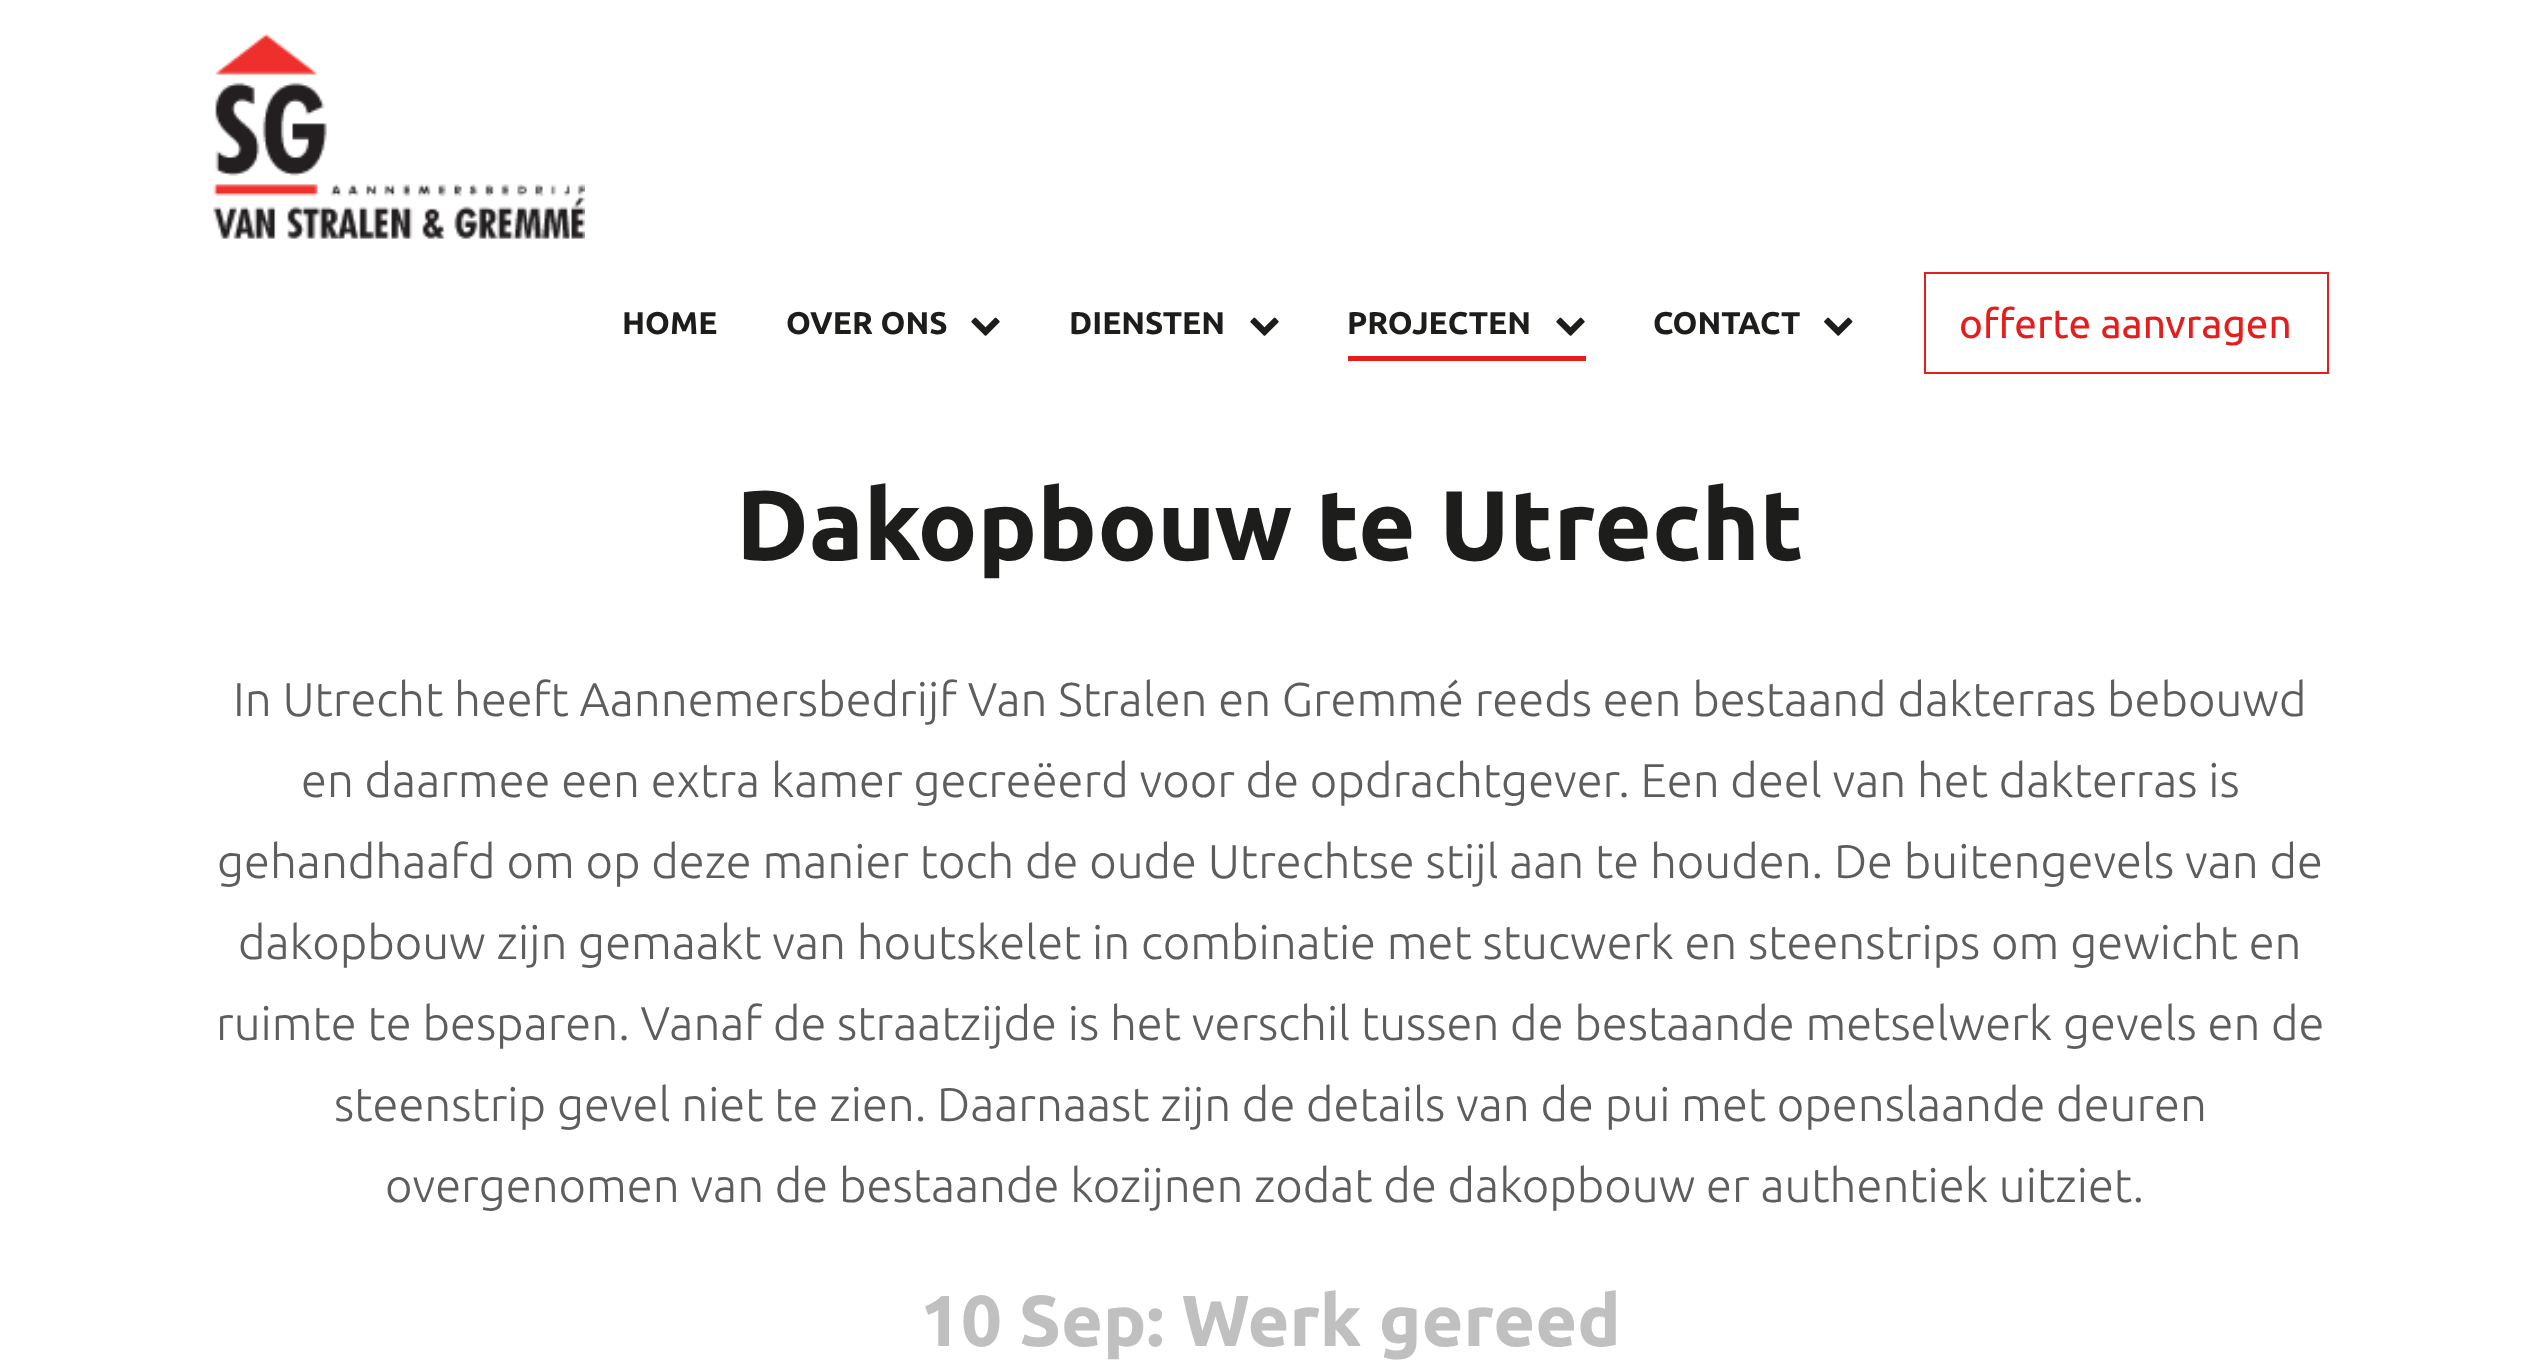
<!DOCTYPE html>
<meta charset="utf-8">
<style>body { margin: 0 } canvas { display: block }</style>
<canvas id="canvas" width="2540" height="1361"></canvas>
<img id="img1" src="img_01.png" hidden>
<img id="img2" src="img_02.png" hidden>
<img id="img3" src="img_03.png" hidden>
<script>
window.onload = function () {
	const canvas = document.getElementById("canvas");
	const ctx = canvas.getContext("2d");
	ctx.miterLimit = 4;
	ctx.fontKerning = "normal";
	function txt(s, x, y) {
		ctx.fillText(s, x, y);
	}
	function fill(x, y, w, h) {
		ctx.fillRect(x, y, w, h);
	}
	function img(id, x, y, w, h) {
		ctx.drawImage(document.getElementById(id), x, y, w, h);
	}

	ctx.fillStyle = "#FFFFFF";
	fill(0, 0, 2540, 1361);
	img("img1", 213, 33, 372, 206);
	img("img2", 971, 317, 29, 19);
	img("img2", 1250, 317, 29, 19);
	img("img2", 1556, 317, 29, 19);
	ctx.fillStyle = "#E51D1D";
	fill(1348, 356, 238, 5);
	img("img3", 1824, 317, 29, 19);
	ctx.strokeStyle = "#E51D1D";
	ctx.lineWidth = 2;
	ctx.strokeRect(1925, 273, 403, 100);
	ctx.font = "bold 31.5px Ubuntu";
	ctx.fillStyle = "#1D1D1B";
	txt("HOME", 622, 334);
	txt("OVER ONS", 786, 334);
	txt("DIENSTEN", 1069, 334);
	txt("PROJECTEN", 1347, 334);
	txt("CONTACT", 1653, 334);
	ctx.font = "40.5px Ubuntu";
	ctx.fillStyle = "#E51D1D";
	txt("offerte aanvragen", 1959, 338);
	ctx.font = "bold 99px Ubuntu";
	ctx.fillStyle = "#1D1D1B";
	txt("Dakopbouw te Utrecht", 736, 560);
	ctx.font = "300 47.25px Ubuntu";
	ctx.fillStyle = "#5D5D5E";
	txt("In Utrecht heeft Aannemersbedrijf Van Stralen en Gremmé reeds een bestaand dakterras bebouwd", 233, 716);
	txt("en daarmee een extra kamer gecreëerd voor de opdrachtgever. Een deel van het dakterras is", 301, 797);
	txt("gehandhaafd om op deze manier toch de oude Utrechtse stijl aan te houden. De buitengevels van de", 217, 878);
	txt("dakopbouw zijn gemaakt van houtskelet in combinatie met stucwerk en steenstrips om gewicht en", 238, 959);
	txt("ruimte te besparen. Vanaf de straatzijde is het verschil tussen de bestaande metselwerk gevels en de", 216, 1040);
	txt("steenstrip gevel niet te zien. Daarnaast zijn de details van de pui met openslaande deuren", 334, 1121);
	txt("overgenomen van de bestaande kozijnen zodat de dakopbouw er authentiek uitziet.", 385, 1202);
	ctx.font = "bold 72px Ubuntu";
	ctx.fillStyle = "#C0C0C0";
	txt("10 Sep: Werk gereed", 920, 1346);
};
</script>
